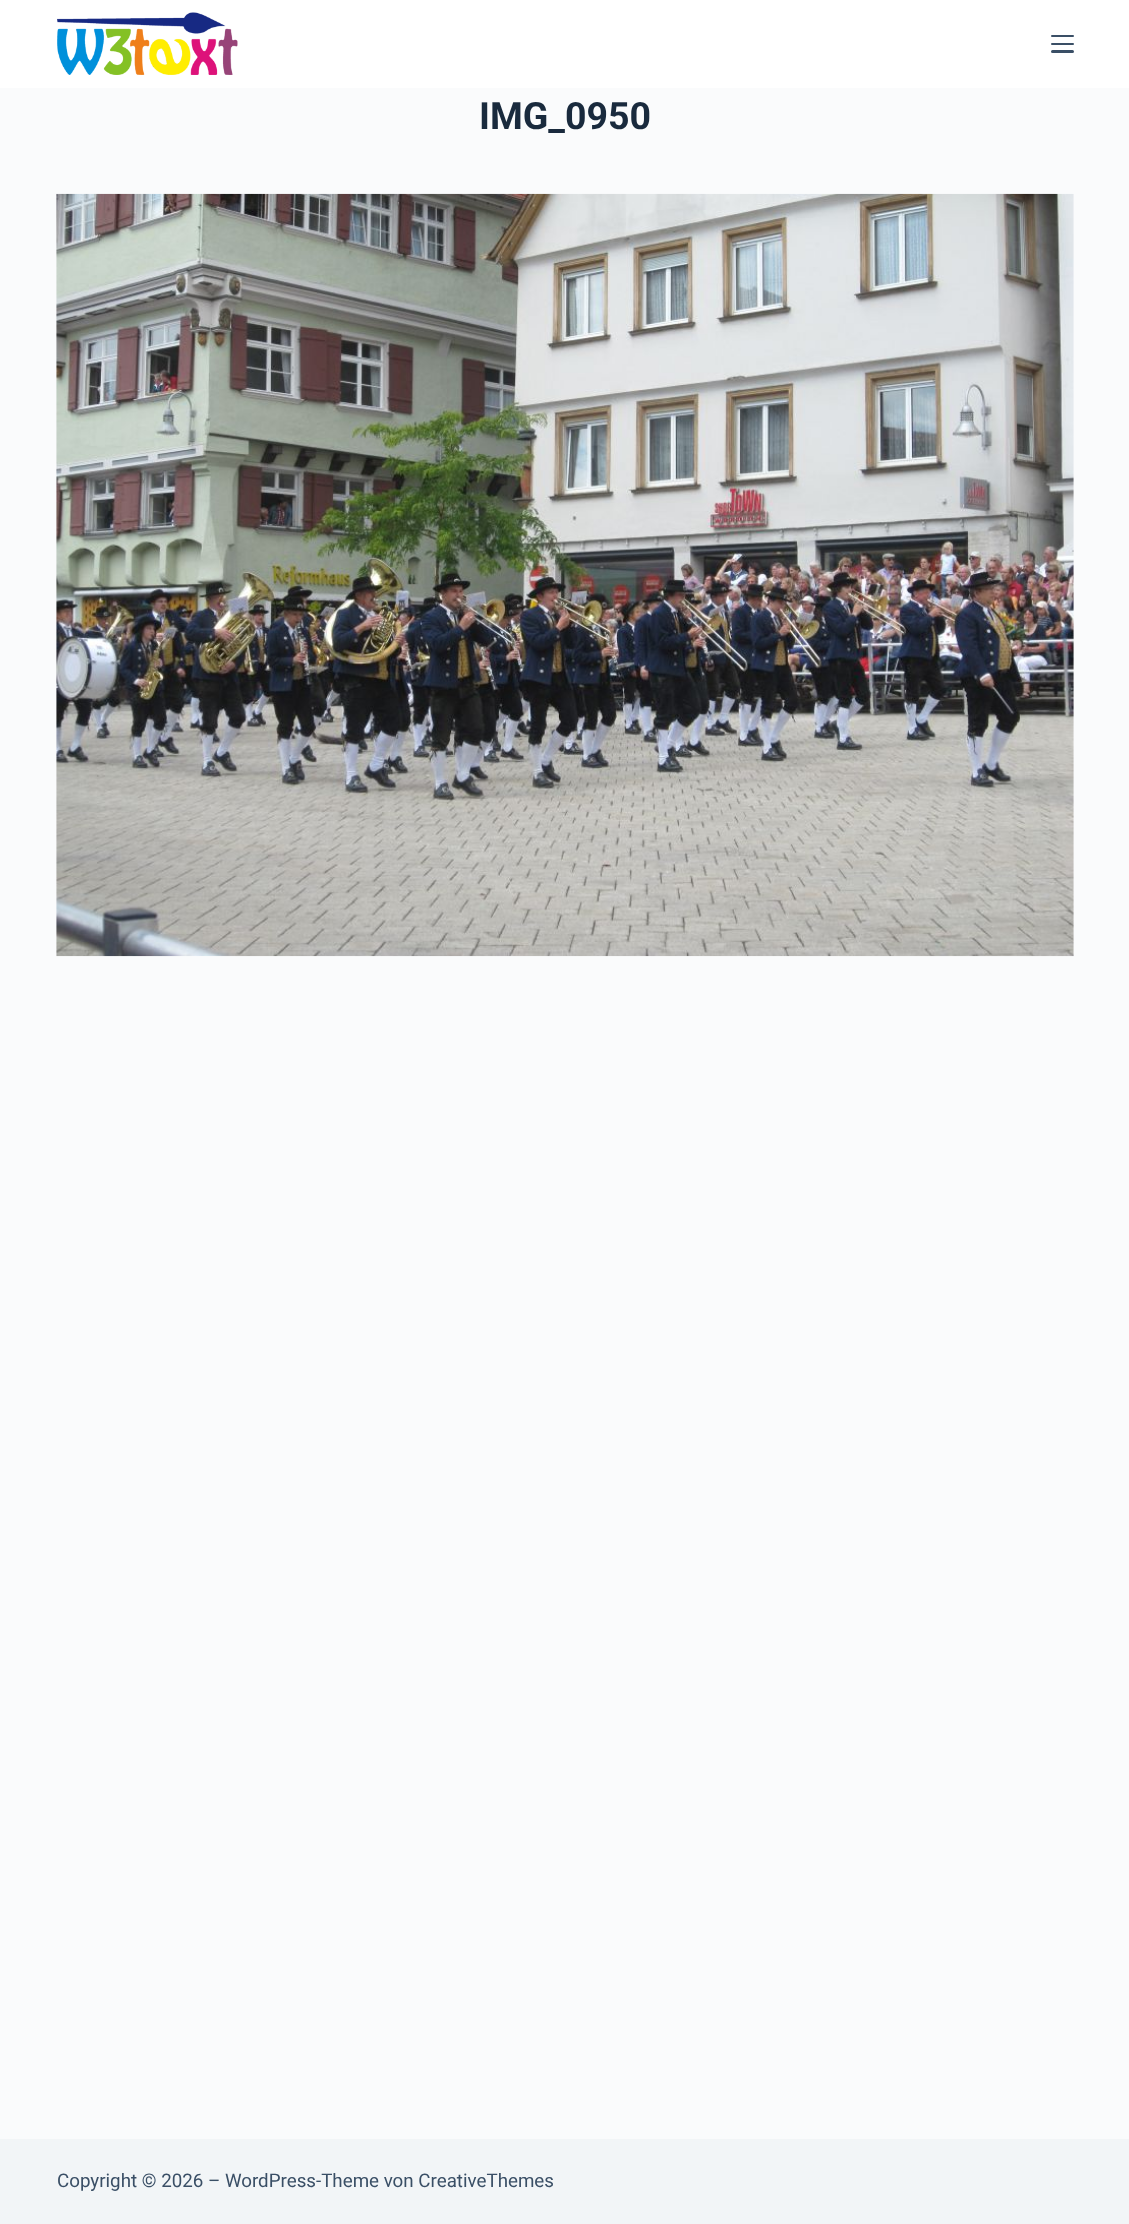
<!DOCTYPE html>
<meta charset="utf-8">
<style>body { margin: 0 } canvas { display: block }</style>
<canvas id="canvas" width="1129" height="2224"></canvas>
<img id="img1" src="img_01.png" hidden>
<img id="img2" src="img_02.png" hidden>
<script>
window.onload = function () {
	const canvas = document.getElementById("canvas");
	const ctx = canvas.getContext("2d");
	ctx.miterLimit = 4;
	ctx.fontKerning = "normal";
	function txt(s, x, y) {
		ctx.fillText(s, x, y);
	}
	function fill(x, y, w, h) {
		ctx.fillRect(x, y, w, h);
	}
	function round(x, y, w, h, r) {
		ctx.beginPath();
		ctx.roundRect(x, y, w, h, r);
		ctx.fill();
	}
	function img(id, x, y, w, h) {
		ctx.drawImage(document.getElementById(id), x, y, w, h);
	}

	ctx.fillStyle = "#FAFBFC";
	fill(0, 0, 1129, 2224);
	ctx.fillStyle = "#FFFFFF";
	fill(0, 0, 1129, 88);
	img("img1", 57, 12, 181, 63);
	ctx.fillStyle = "#3A4F66";
	round(1051, 35, 23, 2, 1);
	round(1051, 43, 23, 2, 1);
	round(1051, 50, 23, 3, 1.5);
	img("img2", 56, 193, 1018, 764);
	ctx.fillStyle = "#F2F5F7";
	fill(0, 2139, 1129, 85);
	ctx.font = "bold 37.5px Roboto";
	ctx.fillStyle = "#192A3D";
	txt("IMG_0950", 479, 129);
	ctx.font = "18.75px Roboto";
	ctx.fillStyle = "#3A4F66";
	txt("Copyright © 2026 – WordPress-Theme von CreativeThemes", 57, 2187);
};
</script>
